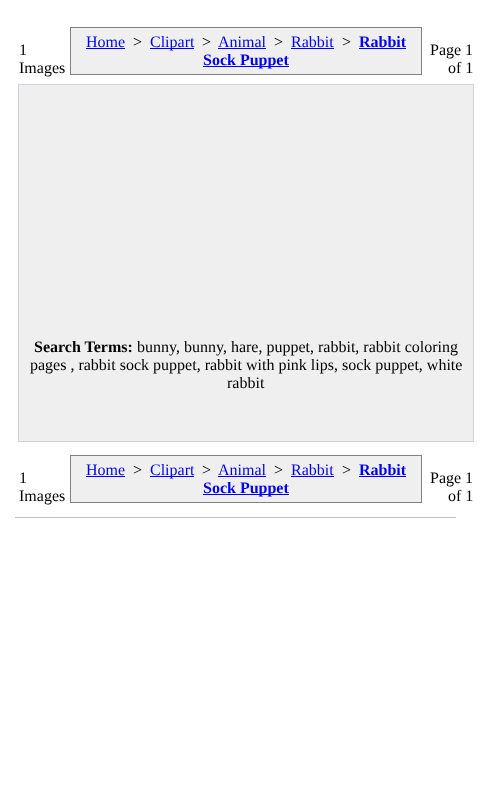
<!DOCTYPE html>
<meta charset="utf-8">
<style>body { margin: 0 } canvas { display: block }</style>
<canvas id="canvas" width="492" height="787"></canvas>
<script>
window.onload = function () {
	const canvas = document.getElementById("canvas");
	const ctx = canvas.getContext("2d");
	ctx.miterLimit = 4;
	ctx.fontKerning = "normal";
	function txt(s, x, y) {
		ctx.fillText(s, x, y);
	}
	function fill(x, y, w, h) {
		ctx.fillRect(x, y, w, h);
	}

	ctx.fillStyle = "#FFFFFF";
	fill(0, 0, 492, 787);
	ctx.fillStyle = "#808080";
	fill(70, 27, 352, 1);
	fill(421, 27, 1, 48);
	fill(70, 74, 352, 1);
	fill(70, 27, 1, 48);
	ctx.fillStyle = "#EFEFEF";
	fill(71, 28, 350, 46);
	ctx.fillStyle = "#0000EE";
	fill(86, 48, 39, 1);
	fill(150, 48, 44, 1);
	fill(218, 48, 48, 1);
	fill(291, 48, 43, 1);
	fill(359, 48, 47, 1);
	fill(203, 66, 86, 1);
	ctx.fillStyle = "#D2D2D8";
	fill(18, 84, 456, 1);
	fill(473, 84, 1, 358);
	fill(18, 441, 456, 1);
	fill(18, 84, 1, 358);
	ctx.fillStyle = "#EFEFEF";
	fill(19, 85, 454, 356);
	ctx.fillStyle = "#808080";
	fill(70, 455, 352, 1);
	fill(421, 455, 1, 48);
	fill(70, 502, 352, 1);
	fill(70, 455, 1, 48);
	ctx.fillStyle = "#EFEFEF";
	fill(71, 456, 350, 46);
	ctx.fillStyle = "#0000EE";
	fill(86, 476, 39, 1);
	fill(150, 476, 44, 1);
	fill(218, 476, 48, 1);
	fill(291, 476, 43, 1);
	fill(359, 476, 47, 1);
	fill(203, 494, 86, 1);
	ctx.fillStyle = "#C0C0C0";
	fill(15, 517, 441, 1);
	ctx.font = "16px Liberation Serif";
	ctx.fillStyle = "#000000";
	txt("1", 19, 55);
	txt("Images", 19, 73);
	ctx.fillStyle = "#0000EE";
	txt("Home", 86, 47);
	ctx.fillStyle = "#000000";
	txt(">", 133, 47);
	ctx.fillStyle = "#0000EE";
	txt("Clipart", 150, 47);
	ctx.fillStyle = "#000000";
	txt(">", 202, 47);
	ctx.fillStyle = "#0000EE";
	txt("Animal", 218, 47);
	ctx.fillStyle = "#000000";
	txt(">", 274, 47);
	ctx.fillStyle = "#0000EE";
	txt("Rabbit", 291, 47);
	ctx.fillStyle = "#000000";
	txt(">", 342, 47);
	ctx.font = "bold 16px Liberation Serif";
	ctx.fillStyle = "#0000EE";
	txt("Rabbit", 359, 47);
	txt("Sock Puppet", 203, 65);
	ctx.font = "16px Liberation Serif";
	ctx.fillStyle = "#000000";
	txt("Page 1", 430, 55);
	txt("of 1", 448, 73);
	ctx.font = "bold 16px Liberation Serif";
	txt("Search Terms:", 34, 352);
	ctx.font = "16px Liberation Serif";
	txt("bunny, bunny, hare, puppet, rabbit, rabbit coloring", 137, 352);
	txt("pages , rabbit sock puppet, rabbit with pink lips, sock puppet, white", 30, 370);
	txt("rabbit", 227, 388);
	txt("1", 19, 483);
	txt("Images", 19, 501);
	ctx.fillStyle = "#0000EE";
	txt("Home", 86, 475);
	ctx.fillStyle = "#000000";
	txt(">", 133, 475);
	ctx.fillStyle = "#0000EE";
	txt("Clipart", 150, 475);
	ctx.fillStyle = "#000000";
	txt(">", 202, 475);
	ctx.fillStyle = "#0000EE";
	txt("Animal", 218, 475);
	ctx.fillStyle = "#000000";
	txt(">", 274, 475);
	ctx.fillStyle = "#0000EE";
	txt("Rabbit", 291, 475);
	ctx.fillStyle = "#000000";
	txt(">", 342, 475);
	ctx.font = "bold 16px Liberation Serif";
	ctx.fillStyle = "#0000EE";
	txt("Rabbit", 359, 475);
	txt("Sock Puppet", 203, 493);
	ctx.font = "16px Liberation Serif";
	ctx.fillStyle = "#000000";
	txt("Page 1", 430, 483);
	txt("of 1", 448, 501);
};
</script>
